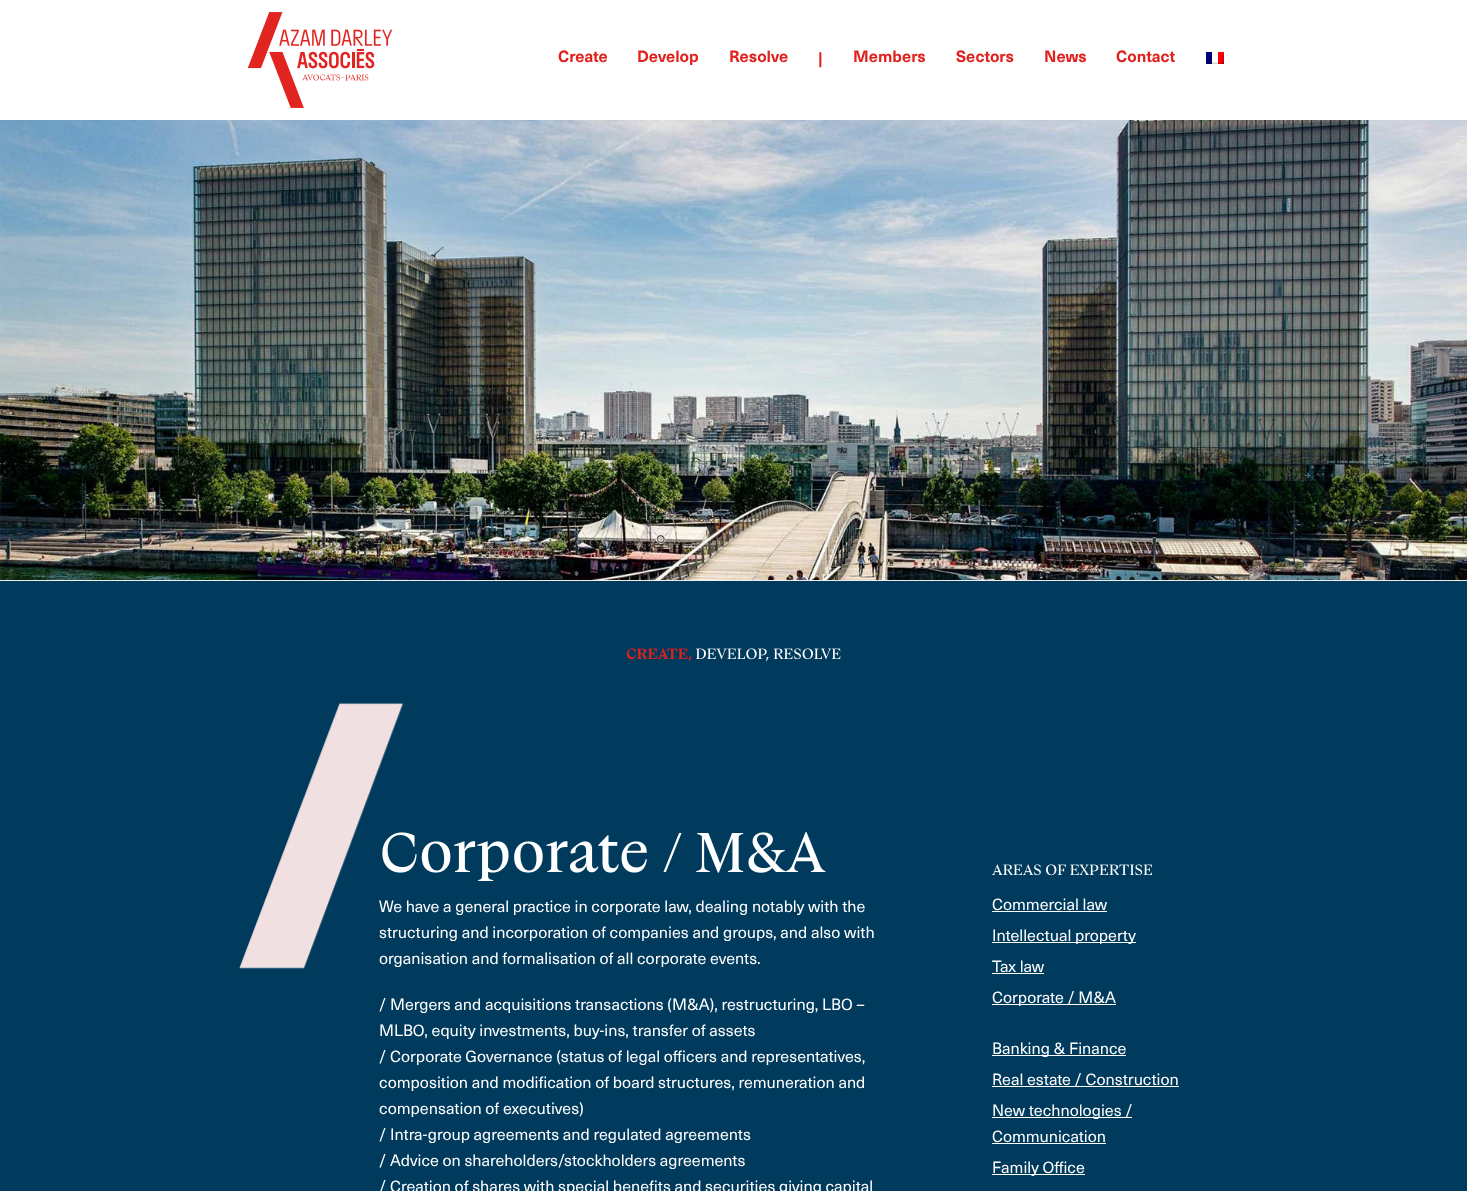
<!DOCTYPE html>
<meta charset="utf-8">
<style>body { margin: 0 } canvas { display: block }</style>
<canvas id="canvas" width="1467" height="1191"></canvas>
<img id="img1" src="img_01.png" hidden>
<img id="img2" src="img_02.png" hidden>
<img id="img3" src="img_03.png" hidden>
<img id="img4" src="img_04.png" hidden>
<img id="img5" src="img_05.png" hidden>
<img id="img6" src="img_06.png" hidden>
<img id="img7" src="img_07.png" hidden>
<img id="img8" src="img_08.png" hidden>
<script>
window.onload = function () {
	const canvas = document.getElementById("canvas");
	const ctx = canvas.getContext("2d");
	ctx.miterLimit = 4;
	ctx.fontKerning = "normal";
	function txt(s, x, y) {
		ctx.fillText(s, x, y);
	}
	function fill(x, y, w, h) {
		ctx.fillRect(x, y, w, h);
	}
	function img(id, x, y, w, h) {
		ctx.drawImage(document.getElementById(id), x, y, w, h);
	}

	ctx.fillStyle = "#FFFFFF";
	fill(0, 0, 1467, 1191);
	img("img1", 247, 12, 146, 96);
	img("img2", 1206, 52, 18, 12);
	img("img3", 0, 120, 1467, 460);
	ctx.fillStyle = "#003A5C";
	fill(0, 581, 1467, 610);
	ctx.fillStyle = "#EDEDED";
	fill(0, 580, 1467, 1);
	img("img4", 626, 648, 66, 14);
	img("img5", 696, 648, 145, 14);
	img("img6", 239, 703, 165, 266);
	img("img7", 382, 832, 444, 49);
	img("img8", 992, 864, 161, 12);
	ctx.fillStyle = "#FFFFFF";
	fill(992, 911, 115, 1);
	fill(992, 942, 144, 1);
	fill(992, 973, 52, 1);
	fill(992, 1004, 124, 1);
	fill(992, 1055, 134, 1);
	fill(992, 1086, 187, 1);
	fill(992, 1117, 140, 1);
	fill(992, 1143, 114, 1);
	fill(992, 1174, 93, 1);
	ctx.font = "bold 16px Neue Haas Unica";
	ctx.fillStyle = "#E1211D";
	txt("Create", 558, 62);
	txt("Develop", 637, 62);
	txt("Resolve", 729, 62);
	txt("|", 818, 64);
	txt("Members", 853, 62);
	txt("Sectors", 956, 62);
	txt("News", 1044, 62);
	txt("Contact", 1116, 62);
	ctx.font = "16px Neue Haas Unica";
	ctx.fillStyle = "#FFFFFF";
	txt("We have a general practice in corporate law, dealing notably with the", 379, 912);
	txt("structuring and incorporation of companies and groups, and also with", 379, 938);
	txt("organisation and formalisation of all corporate events.", 379, 964);
	txt("/ Mergers and acquisitions transactions (M&A), restructuring, LBO –", 379, 1010);
	txt("MLBO, equity investments, buy-ins, transfer of assets", 379, 1036);
	txt("/ Corporate Governance (status of legal officers and representatives,", 379, 1062);
	txt("composition and modification of board structures, remuneration and", 379, 1088);
	txt("compensation of executives)", 379, 1114);
	txt("/ Intra-group agreements and regulated agreements", 379, 1140);
	txt("/ Advice on shareholders/stockholders agreements", 379, 1166);
	txt("/ Creation of shares with special benefits and securities giving capital", 379, 1192);
	txt("Commercial law", 992, 910);
	txt("Intellectual property", 992, 941);
	txt("Tax law", 992, 972);
	txt("Corporate / M&A", 992, 1003);
	txt("Banking & Finance", 992, 1054);
	txt("Real estate / Construction", 992, 1085);
	txt("New technologies /", 992, 1116);
	txt("Communication", 992, 1142);
	txt("Family Office", 992, 1173);
};
</script>
